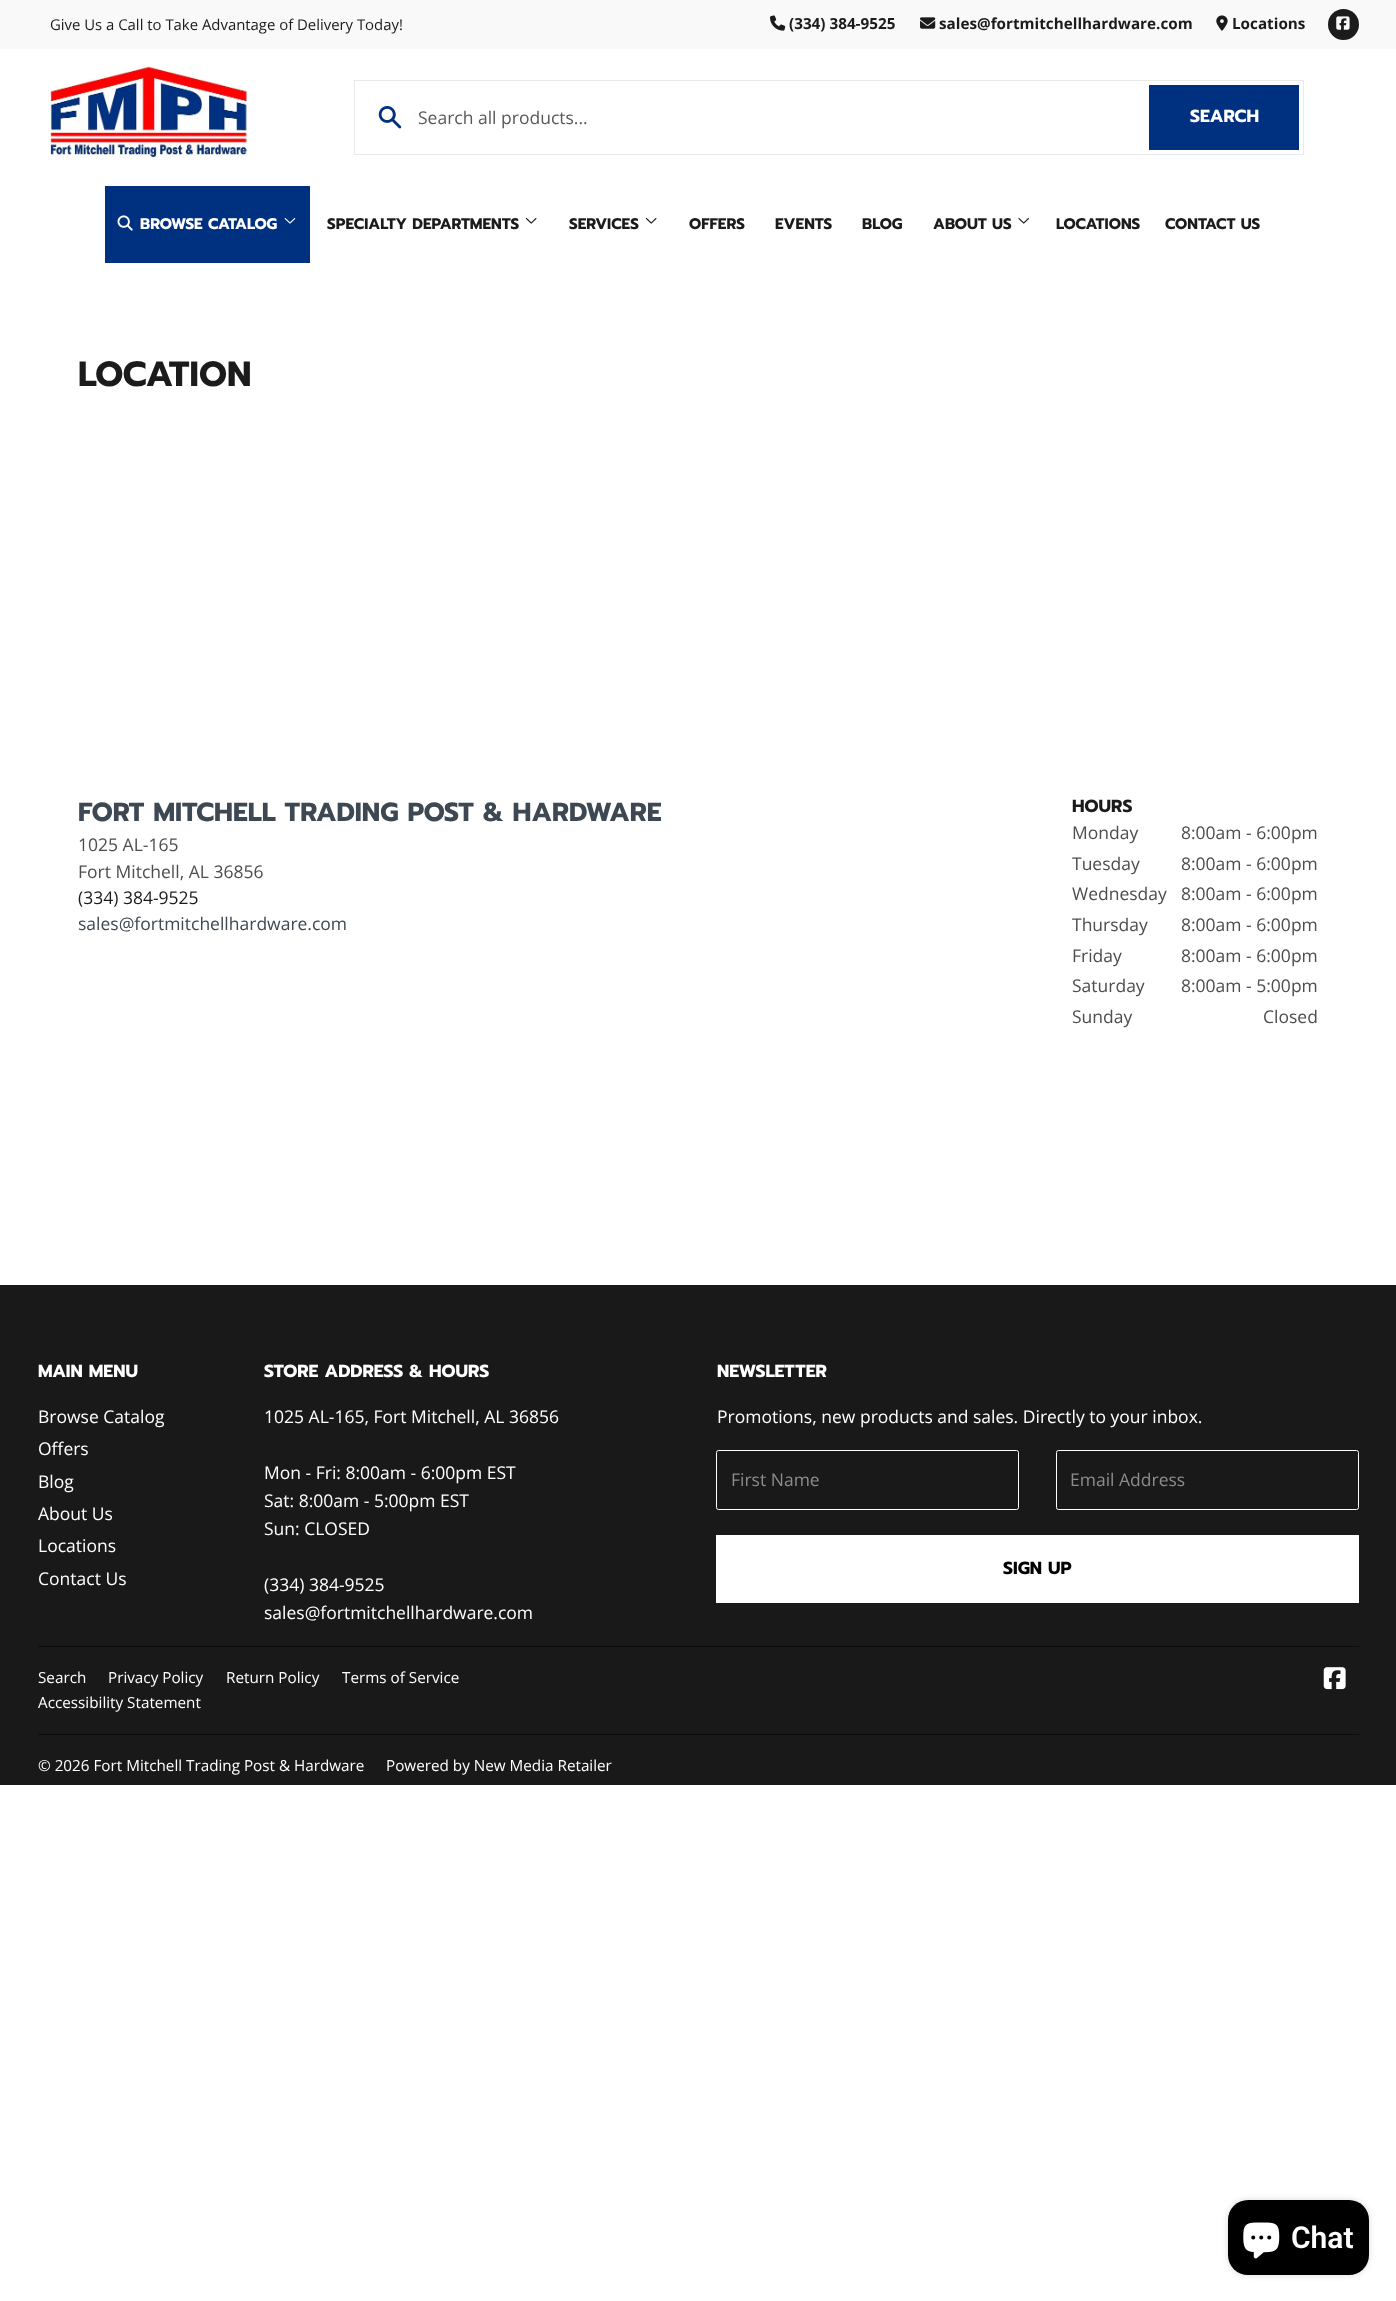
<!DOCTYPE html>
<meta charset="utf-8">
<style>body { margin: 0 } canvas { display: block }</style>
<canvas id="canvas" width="1396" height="2301"></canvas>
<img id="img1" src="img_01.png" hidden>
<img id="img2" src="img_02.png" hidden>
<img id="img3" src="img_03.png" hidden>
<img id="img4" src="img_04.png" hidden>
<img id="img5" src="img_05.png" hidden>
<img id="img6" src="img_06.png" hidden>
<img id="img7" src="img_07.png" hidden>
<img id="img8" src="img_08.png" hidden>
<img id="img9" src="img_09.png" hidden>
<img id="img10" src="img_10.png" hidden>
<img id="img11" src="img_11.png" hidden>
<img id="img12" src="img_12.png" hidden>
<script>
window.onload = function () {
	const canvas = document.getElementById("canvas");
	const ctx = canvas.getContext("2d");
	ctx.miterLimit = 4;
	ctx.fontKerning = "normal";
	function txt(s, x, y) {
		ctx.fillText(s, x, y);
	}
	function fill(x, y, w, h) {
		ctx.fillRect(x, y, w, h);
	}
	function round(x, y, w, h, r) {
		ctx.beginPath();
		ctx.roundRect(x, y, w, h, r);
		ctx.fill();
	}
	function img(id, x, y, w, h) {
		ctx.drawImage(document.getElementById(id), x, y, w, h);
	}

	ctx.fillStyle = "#FFFFFF";
	fill(0, 0, 1396, 2301);
	ctx.fillStyle = "#F9F9F9";
	fill(0, 0, 1396, 49);
	img("img1", 770, 15, 16, 16);
	img("img2", 920, 17, 16, 12);
	img("img3", 1216, 15, 12, 16);
	ctx.fillStyle = "#1B1B1B";
	ctx.beginPath();
	ctx.arc(1343.5, 24.5, 15.5, 0, Math.PI * 2);
	ctx.fill();
	img("img4", 1336, 16, 14, 14);
	img("img5", 48, 66, 200, 92);
	ctx.strokeStyle = "#EAEAEA";
	ctx.strokeRect(354.5, 80.5, 949, 74);
	img("img6", 378, 106, 24, 23);
	ctx.fillStyle = "#003080";
	fill(1149, 85, 150, 65);
	fill(105, 186, 205, 77);
	img("img7", 117, 215, 16, 16);
	img("img8", 284, 217, 12, 7);
	img("img9", 525, 217, 12, 7);
	img("img9", 645, 217, 12, 7);
	img("img10", 1018, 217, 11, 7);
	ctx.fillStyle = "#191919";
	fill(0, 1285, 1396, 500);
	ctx.beginPath();
	ctx.roundRect(716.5, 1450.5, 302, 59, 2);
	ctx.strokeStyle = "#FFFFFF";
	ctx.stroke();
	ctx.beginPath();
	ctx.roundRect(1056.5, 1450.5, 302, 59, 2);
	ctx.stroke();
	ctx.fillStyle = "#FFFFFF";
	fill(716, 1535, 643, 68);
	ctx.fillStyle = "#0C0C0C";
	fill(38, 1646, 1321, 1);
	img("img11", 1323, 1667, 23, 23);
	fill(38, 1734, 1321, 1);
	ctx.fillStyle = "rgba(0, 0, 0, 0.15)";
	ctx.filter = "blur(3px)";
	ctx.beginPath();
	ctx.roundRect(1228, 2200, 141, 75, 20);
	ctx.fill();
	ctx.filter = "none";
	ctx.fillStyle = "#000000";
	round(1228, 2200, 141, 75, 20);
	img("img12", 1243, 2222, 37, 37);
	ctx.font = "14.9px Open Sans";
	ctx.fillStyle = "#1B1B1B";
	txt("Give Us a Call to Take Advantage of Delivery Today!", 50, 30);
	ctx.font = "bold 15.25px Open Sans";
	txt("(334) 384-9525", 789, 29);
	txt("sales@fortmitchellhardware.com", 939, 29);
	txt("Locations", 1232, 29);
	ctx.font = "17.5px Open Sans";
	ctx.fillStyle = "#585858";
	txt("Search all products...", 418, 124);
	ctx.font = "bold 17.5px Prompt";
	ctx.fillStyle = "#FFFFFF";
	txt("SEARCH", 1190, 122);
	ctx.font = "bold 15.25px Prompt";
	txt("BROWSE CATALOG", 140, 229);
	ctx.fillStyle = "#1B1B1B";
	txt("SPECIALTY DEPARTMENTS", 327, 229);
	txt("SERVICES", 569, 229);
	txt("OFFERS", 689, 229);
	txt("EVENTS", 775, 229);
	txt("BLOG", 862, 229);
	txt("ABOUT US", 933, 229);
	txt("LOCATIONS", 1056, 229);
	txt("CONTACT US", 1165, 229);
	ctx.font = "bold 35px Prompt";
	txt("LOCATION", 78, 386);
	ctx.font = "bold 26.25px Prompt";
	ctx.fillStyle = "#3D4852";
	txt("FORT MITCHELL TRADING POST & HARDWARE", 78, 821);
	ctx.font = "17.5px Open Sans";
	ctx.fillStyle = "#4D4D4D";
	txt("1025 AL-165", 78, 851);
	txt("Fort Mitchell, AL 36856", 78, 878);
	ctx.fillStyle = "#1B1B1B";
	txt("(334) 384-9525", 78, 904);
	ctx.fillStyle = "#3D4852";
	txt("sales@fortmitchellhardware.com", 78, 930);
	ctx.font = "bold 17.5px Prompt";
	ctx.fillStyle = "#1B1B1B";
	txt("HOURS", 1072, 812);
	ctx.font = "17.5px Open Sans";
	ctx.fillStyle = "#4D4D4D";
	txt("Monday", 1072, 839);
	txt("8:00am - 6:00pm", 1181, 839);
	txt("Tuesday", 1072, 870);
	txt("8:00am - 6:00pm", 1181, 870);
	txt("Wednesday", 1072, 900);
	txt("8:00am - 6:00pm", 1181, 900);
	txt("Thursday", 1072, 931);
	txt("8:00am - 6:00pm", 1181, 931);
	txt("Friday", 1072, 962);
	txt("8:00am - 6:00pm", 1181, 962);
	txt("Saturday", 1072, 992);
	txt("8:00am - 5:00pm", 1181, 992);
	txt("Sunday", 1072, 1023);
	txt("Closed", 1263, 1023);
	ctx.font = "bold 17.5px Prompt";
	ctx.fillStyle = "#FFFFFF";
	txt("MAIN MENU", 38, 1377);
	ctx.font = "17.5px Open Sans";
	txt("Browse Catalog", 38, 1423);
	txt("Offers", 38, 1455);
	txt("Blog", 38, 1488);
	txt("About Us", 38, 1520);
	txt("Locations", 38, 1552);
	txt("Contact Us", 38, 1585);
	ctx.font = "bold 17.5px Prompt";
	txt("STORE ADDRESS & HOURS", 264, 1377);
	ctx.font = "17.5px Open Sans";
	txt("1025 AL-165, Fort Mitchell, AL 36856", 264, 1423);
	txt("Mon - Fri: 8:00am - 6:00pm EST", 264, 1479);
	txt("Sat: 8:00am - 5:00pm EST", 264, 1507);
	txt("Sun: CLOSED", 264, 1535);
	txt("(334) 384-9525", 264, 1591);
	txt("sales@fortmitchellhardware.com", 264, 1619);
	ctx.font = "bold 17.5px Prompt";
	txt("NEWSLETTER", 717, 1377);
	ctx.font = "17.5px Open Sans";
	txt("Promotions, new products and sales. Directly to your inbox.", 717, 1423);
	ctx.fillStyle = "#8C8C8C";
	txt("First Name", 731, 1486);
	txt("Email Address", 1070, 1486);
	ctx.font = "bold 17.5px Prompt";
	ctx.fillStyle = "#000000";
	txt("SIGN UP", 1003, 1574);
	ctx.font = "15.25px Open Sans";
	ctx.fillStyle = "#FFFFFF";
	txt("Search", 38, 1683);
	txt("Privacy Policy", 108, 1683);
	txt("Return Policy", 226, 1683);
	txt("Terms of Service", 342, 1683);
	txt("Accessibility Statement", 38, 1708);
	txt("© 2026 Fort Mitchell Trading Post & Hardware", 38, 1771);
	txt("Powered by New Media Retailer", 386, 1771);
	ctx.font = "600 30px Roboto";
	txt("Chat", 1291, 2248);
};
</script>
